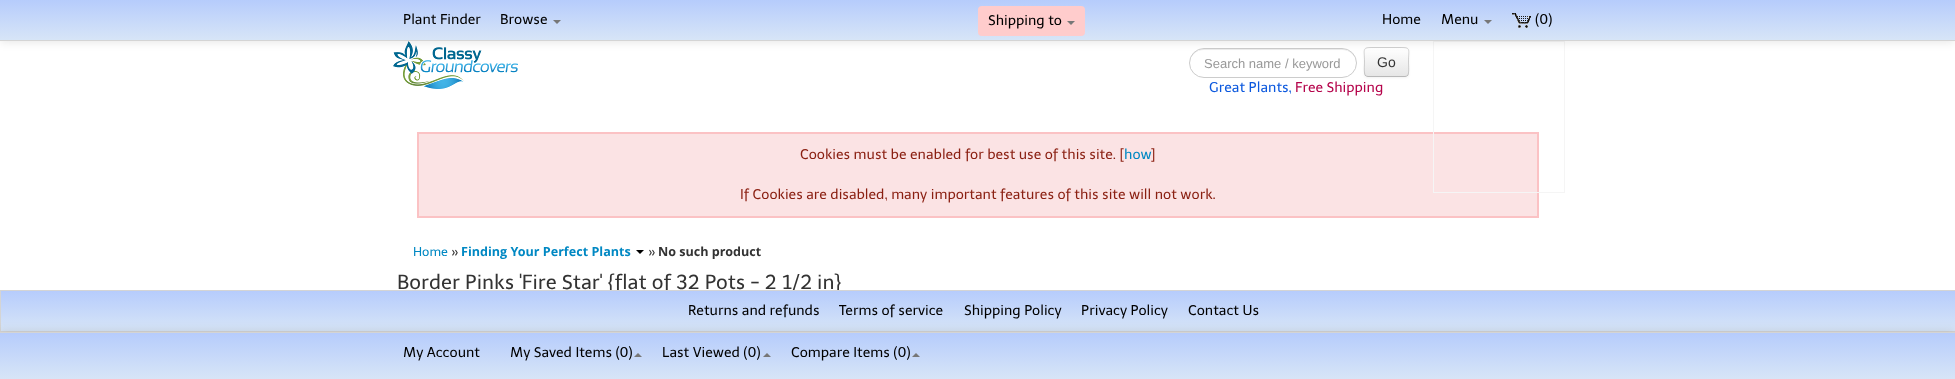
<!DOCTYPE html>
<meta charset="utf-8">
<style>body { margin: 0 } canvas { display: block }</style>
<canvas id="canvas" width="1955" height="379"></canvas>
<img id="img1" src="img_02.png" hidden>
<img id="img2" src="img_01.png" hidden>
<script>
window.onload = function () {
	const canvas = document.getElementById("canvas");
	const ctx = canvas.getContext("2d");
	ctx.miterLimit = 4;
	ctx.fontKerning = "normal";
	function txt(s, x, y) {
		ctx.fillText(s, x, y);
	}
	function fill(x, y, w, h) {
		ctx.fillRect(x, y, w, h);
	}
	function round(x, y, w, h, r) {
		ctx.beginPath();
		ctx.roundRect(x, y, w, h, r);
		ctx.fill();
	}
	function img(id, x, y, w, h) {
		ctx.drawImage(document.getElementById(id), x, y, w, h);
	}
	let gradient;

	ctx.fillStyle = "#FFFFFF";
	fill(0, 0, 1955, 379);
	img("img1", 393, 41, 125, 48);
	ctx.fillStyle = "#ECECEC";
	ctx.beginPath();
	ctx.moveTo(1204, 50);
	ctx.lineTo(1342, 50);
	ctx.bezierCurveTo(1350, 50, 1356, 56, 1356, 63);
	ctx.bezierCurveTo(1357, 44, 1330, 49, 1319, 49);
	ctx.lineTo(1227, 49);
	ctx.bezierCurveTo(1216, 49, 1189, 44, 1190, 63);
	ctx.bezierCurveTo(1190, 56, 1196, 50, 1204, 50);
	ctx.closePath();
	ctx.fill();
	ctx.beginPath();
	ctx.roundRect(1189.5, 48.5, 167, 29, 14.5);
	ctx.strokeStyle = "#CCCCCC";
	ctx.stroke();
	ctx.fillStyle = "rgba(0, 0, 0, 0.05)";
	ctx.filter = "blur(1px)";
	ctx.beginPath();
	ctx.roundRect(1364, 48, 45, 30, 4);
	ctx.fill();
	ctx.filter = "none";
	ctx.fillStyle = "#F5F5F5";
	round(1364, 47, 45, 30, 4);
	ctx.save();
	ctx.beginPath();
	ctx.roundRect(1364, 47, 45, 30, 4);
	ctx.clip();
	gradient = ctx.createLinearGradient(1387, 48, 1387, 76);
	gradient.addColorStop(0, "#FFFFFF");
	gradient.addColorStop(1, "#E6E6E6");
	ctx.fillStyle = gradient;
	fill(1364, 48, 45, 28);
	ctx.restore();
	ctx.beginPath();
	ctx.moveTo(1407.5, 75.5);
	ctx.bezierCurveTo(1407, 76, 1406, 76.5, 1405, 76.5);
	ctx.lineTo(1368, 76.5);
	ctx.bezierCurveTo(1367, 76.5, 1366, 76, 1365.5, 75.5);
	ctx.strokeStyle = "#B8B8B8";
	ctx.stroke();
	ctx.beginPath();
	ctx.moveTo(1365.5, 75.5);
	ctx.bezierCurveTo(1363.5, 73.5, 1364.5, 65, 1364.5, 62);
	ctx.bezierCurveTo(1364.5, 48.5, 1361.5, 47.5, 1374, 47.5);
	ctx.lineTo(1399, 47.5);
	ctx.bezierCurveTo(1411.5, 47.5, 1408.5, 48.5, 1408.5, 62);
	ctx.bezierCurveTo(1408.5, 65, 1409.5, 73.5, 1407.5, 75.5);
	ctx.strokeStyle = "rgba(0, 0, 0, 0.15)";
	ctx.stroke();
	ctx.fillStyle = "#FBE3E4";
	ctx.beginPath();
	ctx.rect(418, 133, 1120, 84);
	ctx.fill();
	ctx.strokeStyle = "#FBC2C4";
	ctx.lineWidth = 2;
	ctx.stroke();
	ctx.strokeStyle = "#F5F5F5";
	ctx.lineWidth = 1;
	ctx.strokeRect(1433.5, 41.5, 131, 151);
	ctx.fillStyle = "rgba(0, 0, 0, 0.1)";
	ctx.filter = "blur(5px)";
	ctx.beginPath();
	ctx.rect(0, 1, 1955, 41);
	ctx.fill();
	ctx.filter = "none";
	gradient = ctx.createLinearGradient(978, 0, 978, 40);
	gradient.addColorStop(0, "#B6CCFC");
	gradient.addColorStop(1, "#D7E5F7");
	ctx.fillStyle = gradient;
	fill(0, 0, 1955, 40);
	ctx.fillStyle = "#D4D4D4";
	fill(0, 40, 1955, 1);
	ctx.fillStyle = "#777777";
	ctx.beginPath();
	ctx.moveTo(553, 20);
	ctx.lineTo(561, 20);
	ctx.lineTo(557, 24);
	ctx.closePath();
	ctx.fill();
	ctx.fillStyle = "#FFCCCC";
	round(978, 6, 107, 30, 4);
	ctx.fillStyle = "#777777";
	ctx.beginPath();
	ctx.moveTo(1067, 21);
	ctx.lineTo(1075, 21);
	ctx.lineTo(1071, 25);
	ctx.closePath();
	ctx.fill();
	ctx.beginPath();
	ctx.moveTo(1484, 20);
	ctx.lineTo(1492, 20);
	ctx.lineTo(1488, 24);
	ctx.closePath();
	ctx.fill();
	img("img2", 1512, 13, 19, 15);
	ctx.fillStyle = "#000000";
	ctx.beginPath();
	ctx.moveTo(636, 250);
	ctx.lineTo(644, 250);
	ctx.lineTo(640, 254);
	ctx.closePath();
	ctx.fill();
	ctx.font = "14px Telex";
	txt("Plant Finder", 403, 24);
	txt("Browse", 500, 24);
	txt("Shipping to", 988, 25);
	txt("Home", 1382, 24);
	txt("Menu", 1441, 24);
	txt("(0)", 1535, 24);
	ctx.font = "13px Liberation Sans";
	ctx.fillStyle = "#999999";
	txt("Search name / keyword", 1204, 68);
	ctx.font = "14px Liberation Sans";
	ctx.fillStyle = "#333333";
	txt("Go", 1377, 67);
	ctx.font = "14px Telex";
	ctx.fillStyle = "#0B58DE";
	txt("Great Plants,", 1209, 92);
	ctx.fillStyle = "#B5044B";
	txt("Free Shipping", 1295, 92);
	ctx.fillStyle = "#8A1F11";
	txt("Cookies must be enabled for best use of this site. [", 800, 159);
	ctx.fillStyle = "#0088C3";
	txt("how", 1124, 159);
	ctx.fillStyle = "#8A1F11";
	txt("]", 1151, 159);
	txt("If Cookies are disabled, many important features of this site will not work.", 740, 199);
	ctx.font = "12.6px Telex";
	ctx.fillStyle = "#0088C3";
	txt("Home", 413, 256);
	ctx.fillStyle = "#333333";
	txt("»", 451, 256);
	ctx.font = "bold 12.6px Open Sans";
	ctx.fillStyle = "#0088C3";
	txt("Finding Your Perfect Plants", 461, 256);
	ctx.font = "12.6px Telex";
	ctx.fillStyle = "#333333";
	txt("»", 648, 256);
	ctx.font = "bold 12.6px Open Sans";
	txt("No such product", 658, 256);
	ctx.font = "20.2px Telex";
	txt("Border Pinks 'Fire Star' {flat of 32 Pots - 2 1/2 in}", 397, 289);
	gradient = ctx.createLinearGradient(979, 291, 979, 331);
	gradient.addColorStop(0, "#B6CCFC");
	gradient.addColorStop(1, "#D7E5F7");
	ctx.fillStyle = gradient;
	fill(1, 291, 1954, 40);
	ctx.strokeStyle = "#D4D4D4";
	ctx.strokeRect(0.5, 290.5, 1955, 41);
	ctx.font = "14px Telex";
	ctx.fillStyle = "#000000";
	txt("Returns and refunds", 688, 315);
	txt("Terms of service", 839, 315);
	txt("Shipping Policy", 964, 315);
	txt("Privacy Policy", 1081, 315);
	txt("Contact Us", 1188, 315);
	ctx.fillStyle = "rgba(0, 0, 0, 0.1)";
	ctx.filter = "blur(5px)";
	ctx.beginPath();
	ctx.rect(0, 331, 1955, 47);
	ctx.fill();
	ctx.filter = "none";
	gradient = ctx.createLinearGradient(978, 333, 978, 379);
	gradient.addColorStop(0, "#B6CCFC");
	gradient.addColorStop(1, "#D7E5F7");
	ctx.fillStyle = gradient;
	fill(0, 333, 1955, 46);
	ctx.fillStyle = "#D4D4D4";
	fill(0, 332, 1955, 1);
	ctx.fillStyle = "#000000";
	txt("My Account", 403, 357);
	txt("My Saved Items (0)", 510, 357);
	ctx.fillStyle = "#777777";
	ctx.beginPath();
	ctx.moveTo(642, 357);
	ctx.lineTo(634, 357);
	ctx.lineTo(638, 353);
	ctx.closePath();
	ctx.fill();
	ctx.fillStyle = "#000000";
	txt("Last Viewed (0)", 662, 357);
	ctx.fillStyle = "#777777";
	ctx.beginPath();
	ctx.moveTo(771, 357);
	ctx.lineTo(763, 357);
	ctx.lineTo(767, 353);
	ctx.closePath();
	ctx.fill();
	ctx.fillStyle = "#000000";
	txt("Compare Items (0)", 791, 357);
	ctx.fillStyle = "#777777";
	ctx.beginPath();
	ctx.moveTo(920, 357);
	ctx.lineTo(912, 357);
	ctx.lineTo(916, 353);
	ctx.closePath();
	ctx.fill();
};
</script>
